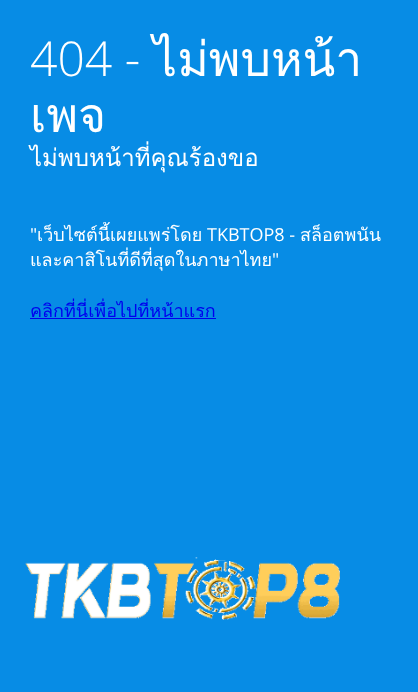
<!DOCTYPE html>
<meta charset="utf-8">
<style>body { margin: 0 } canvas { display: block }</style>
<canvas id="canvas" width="418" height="692"></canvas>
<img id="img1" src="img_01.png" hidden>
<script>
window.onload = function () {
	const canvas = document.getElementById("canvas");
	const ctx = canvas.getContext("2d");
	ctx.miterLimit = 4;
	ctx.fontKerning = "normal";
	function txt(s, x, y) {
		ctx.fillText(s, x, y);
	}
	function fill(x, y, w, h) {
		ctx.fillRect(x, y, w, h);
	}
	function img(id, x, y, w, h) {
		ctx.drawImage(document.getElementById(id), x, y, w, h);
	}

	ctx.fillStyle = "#078CE5";
	fill(0, 0, 418, 692);
	ctx.fillStyle = "#0000EE";
	fill(30, 318, 186, 1);
	img("img1", 25, 557, 315, 63);
	ctx.font = "300 48px Open Sans";
	ctx.fillStyle = "#FFFFFF";
	txt("404 -", 30, 76);
	ctx.font = "48px Loma";
	txt("ไม่พบหน้า", 153, 76);
	txt("เพจ", 30, 132);
	ctx.font = "24px Loma";
	txt("ไม่พบหน้าที่คุณร้องขอ", 30, 166);
	ctx.font = "18px Open Sans";
	txt("\"", 30, 241);
	ctx.font = "18px Loma";
	txt("เว็บไซต์นี้เผยแพร่โดย", 37, 241);
	ctx.font = "18px Open Sans";
	txt("TKBTOP8 -", 207, 241);
	ctx.font = "18px Loma";
	txt("สล็อตพนัน", 300, 241);
	txt("และคาสิโนที่ดีที่สุดในภาษาไทย", 30, 266);
	ctx.font = "18px Open Sans";
	txt("\"", 272, 266);
	ctx.font = "18px Loma";
	ctx.fillStyle = "#0000EE";
	txt("คลิกที่นี่เพื่อไปที่หน้าแรก", 30, 317);
};
</script>
